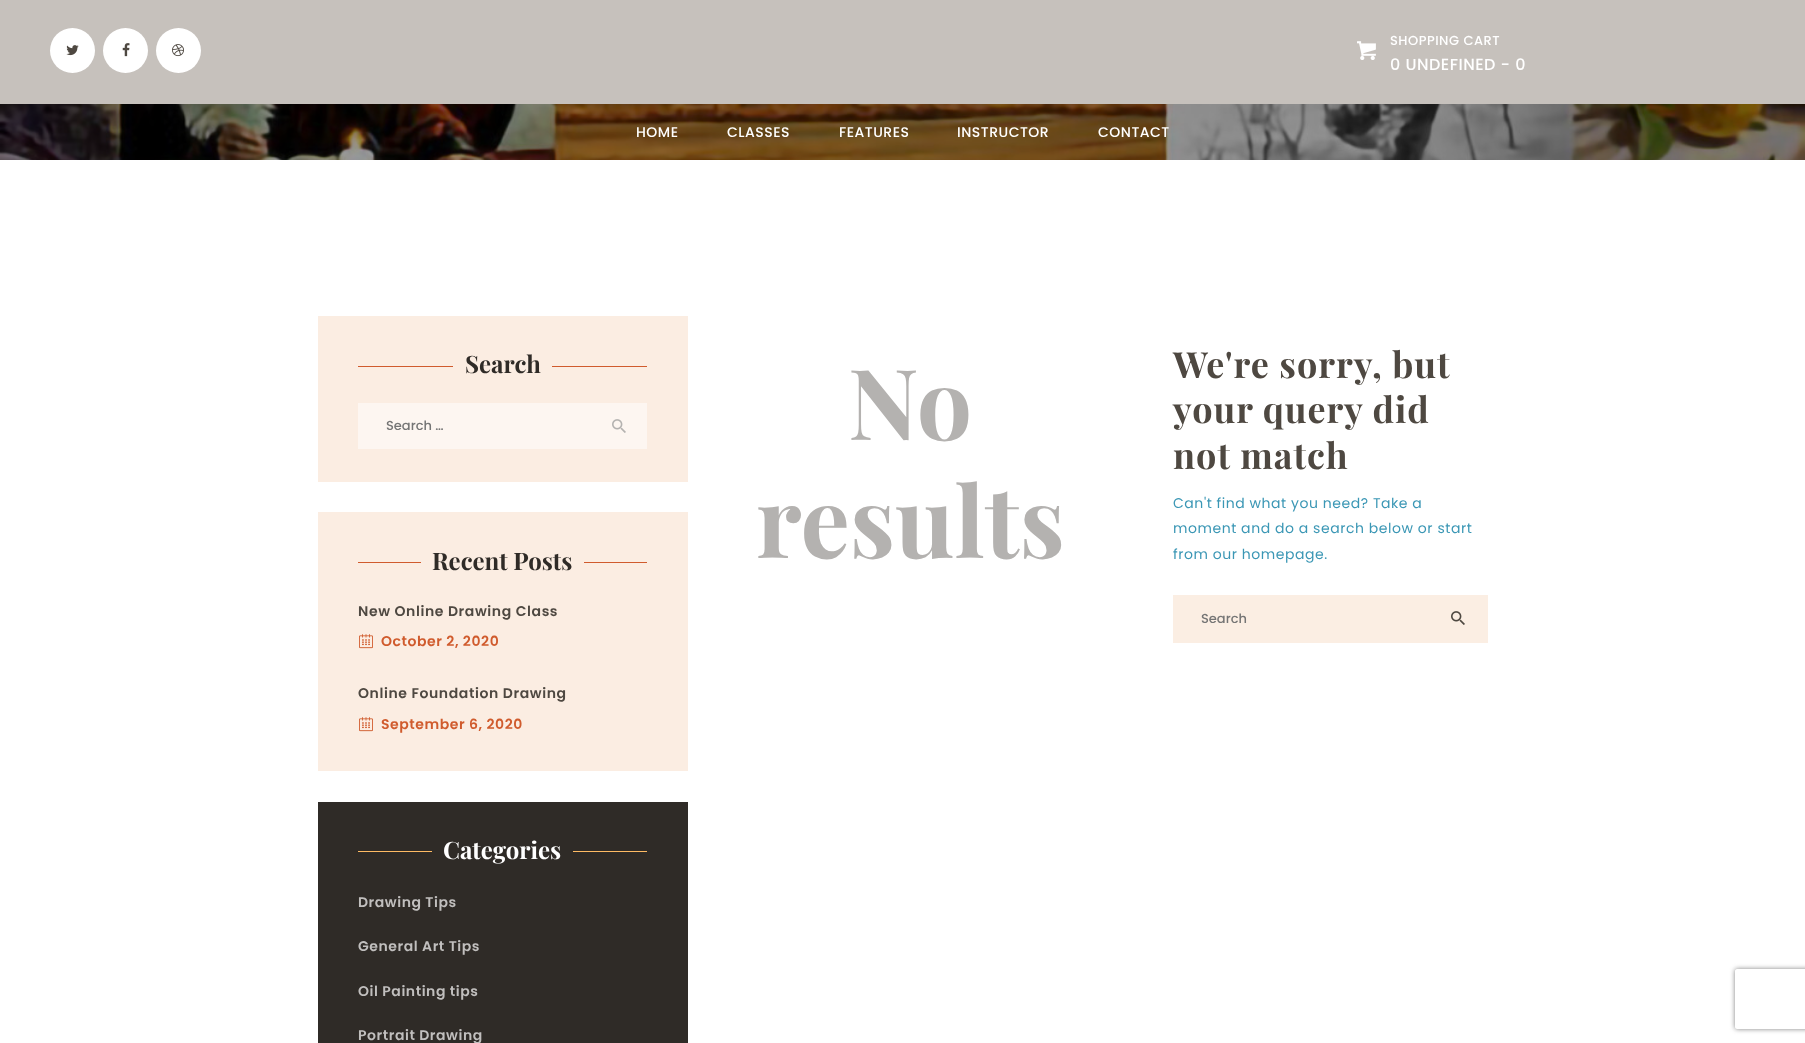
<!DOCTYPE html>
<meta charset="utf-8">
<style>body { margin: 0 } canvas { display: block }</style>
<canvas id="canvas" width="1805" height="1043"></canvas>
<img id="img1" src="img_01.png" hidden>
<img id="img2" src="img_02.png" hidden>
<img id="img3" src="img_03.png" hidden>
<img id="img4" src="img_04.png" hidden>
<img id="img5" src="img_05.png" hidden>
<img id="img6" src="img_06.png" hidden>
<img id="img7" src="img_07.png" hidden>
<img id="img8" src="img_08.png" hidden>
<script>
window.onload = function () {
	const canvas = document.getElementById("canvas");
	const ctx = canvas.getContext("2d");
	ctx.miterLimit = 4;
	ctx.fontKerning = "normal";
	function txt(s, x, y) {
		ctx.fillText(s, x, y);
	}
	function fill(x, y, w, h) {
		ctx.fillRect(x, y, w, h);
	}
	function img(id, x, y, w, h) {
		ctx.drawImage(document.getElementById(id), x, y, w, h);
	}

	ctx.fillStyle = "#FFFFFF";
	fill(0, 0, 1805, 1043);
	img("img1", 0, 104, 1805, 56);
	ctx.fillStyle = "#C6C1BC";
	fill(0, 0, 1805, 104);
	ctx.fillStyle = "#FFFFFF";
	ctx.beginPath();
	ctx.arc(72.5, 50.5, 22.5, 0, Math.PI * 2);
	ctx.fill();
	img("img2", 66, 45, 13, 11);
	ctx.beginPath();
	ctx.arc(125.5, 50.5, 22.5, 0, Math.PI * 2);
	ctx.fill();
	img("img3", 122, 43, 8, 14);
	ctx.beginPath();
	ctx.arc(178.5, 50.5, 22.5, 0, Math.PI * 2);
	ctx.fill();
	img("img4", 172, 44, 12, 13);
	img("img5", 1357, 41, 19, 19);
	ctx.fillStyle = "rgba(0, 0, 0, 0.4)";
	fill(0, 104, 1805, 56);
	ctx.fillStyle = "#FBEDE2";
	fill(318, 316, 370, 166);
	ctx.fillStyle = "#D05B2D";
	fill(358, 366, 289, 1);
	ctx.fillStyle = "#FBEDE2";
	fill(453, 366, 99, 1);
	ctx.fillStyle = "#FDF6F1";
	fill(358, 403, 289, 46);
	img("img6", 612, 419, 14, 14);
	ctx.fillStyle = "#FBEDE2";
	fill(318, 512, 370, 259);
	ctx.fillStyle = "#D05B2D";
	fill(358, 562, 289, 1);
	ctx.fillStyle = "#FBEDE2";
	fill(421, 562, 163, 1);
	img("img7", 359, 634, 14, 15);
	img("img7", 359, 717, 14, 15);
	ctx.fillStyle = "#2F2B27";
	fill(318, 802, 370, 241);
	ctx.fillStyle = "#FEBB64";
	fill(358, 851, 289, 1);
	ctx.fillStyle = "#2F2B27";
	fill(432, 851, 141, 1);
	ctx.fillStyle = "#FBEEE3";
	fill(1173, 595, 315, 48);
	img("img8", 1451, 611, 14, 14);
	ctx.save();
	ctx.beginPath();
	ctx.moveTo(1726, 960);
	ctx.lineTo(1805, 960);
	ctx.lineTo(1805, 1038);
	ctx.lineTo(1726, 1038);
	ctx.closePath();
	ctx.moveTo(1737, 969);
	ctx.lineTo(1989, 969);
	ctx.bezierCurveTo(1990, 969, 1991, 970, 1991, 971);
	ctx.lineTo(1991, 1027);
	ctx.bezierCurveTo(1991, 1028, 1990, 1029, 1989, 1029);
	ctx.lineTo(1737, 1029);
	ctx.bezierCurveTo(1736, 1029, 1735, 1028, 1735, 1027);
	ctx.lineTo(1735, 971);
	ctx.bezierCurveTo(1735, 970, 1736, 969, 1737, 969);
	ctx.closePath();
	ctx.clip("evenodd");
	ctx.fillStyle = "#808080";
	ctx.filter = "blur(2.5px)";
	ctx.beginPath();
	ctx.roundRect(1735, 969, 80, 60, 2);
	ctx.fill();
	ctx.filter = "none";
	ctx.restore();
	ctx.letterSpacing = "0.5px";
	ctx.font = "500 13px Poppins";
	ctx.fillStyle = "#FFFFFF";
	txt("SHOPPING CART", 1390, 45);
	ctx.font = "500 16px Poppins";
	txt("0 UNDEFINED - 0", 1390, 70);
	ctx.font = "500 14px Poppins";
	txt("HOME", 636, 137);
	txt("CLASSES", 727, 137);
	txt("FEATURES", 839, 137);
	txt("INSTRUCTOR", 957, 137);
	txt("CONTACT", 1098, 137);
	ctx.letterSpacing = "0px";
	ctx.font = "bold 24px Playfair Display";
	ctx.fillStyle = "#2F2B27";
	txt("Search", 465, 373);
	ctx.font = "500 13px Poppins";
	ctx.fillStyle = "#757575";
	txt("Search …", 386, 430);
	ctx.font = "bold 24px Playfair Display";
	ctx.fillStyle = "#2F2B27";
	txt("Recent Posts", 432, 570);
	ctx.letterSpacing = "0.6px";
	ctx.font = "600 14px Poppins";
	ctx.fillStyle = "#4E4841";
	txt("New Online Drawing Class", 358, 616);
	ctx.letterSpacing = "0.55px";
	ctx.fillStyle = "#D05B2D";
	txt("October 2, 2020", 381, 646);
	ctx.letterSpacing = "0.6px";
	ctx.fillStyle = "#4E4841";
	txt("Online Foundation Drawing", 358, 698);
	ctx.letterSpacing = "0.55px";
	ctx.fillStyle = "#D05B2D";
	txt("September 6, 2020", 381, 729);
	ctx.letterSpacing = "0px";
	ctx.font = "bold 24px Playfair Display";
	ctx.fillStyle = "#FFFFFF";
	txt("Categories", 443, 859);
	ctx.letterSpacing = "0.55px";
	ctx.font = "600 14px Poppins";
	ctx.fillStyle = "#C1BFBE";
	txt("Drawing Tips", 358, 907);
	txt("General Art Tips", 358, 951);
	txt("Oil Painting tips", 358, 996);
	txt("Portrait Drawing", 358, 1040);
	ctx.letterSpacing = "0px";
	ctx.font = "bold 98px Playfair Display";
	ctx.fillStyle = "#B4B2B0";
	txt("No", 848, 440);
	txt("results", 756, 558);
	ctx.letterSpacing = "1px";
	ctx.font = "bold 36px Playfair Display";
	ctx.fillStyle = "#4E4841";
	txt("We're sorry, but", 1173, 378);
	txt("your query did", 1173, 423);
	txt("not match", 1173, 469);
	ctx.letterSpacing = "0.55px";
	ctx.font = "14px Poppins";
	ctx.fillStyle = "#3B97B5";
	txt("Can't find what you need? Take a", 1173, 508);
	txt("moment and do a search below or start", 1173, 533);
	txt("from our homepage.", 1173, 559);
	ctx.letterSpacing = "0px";
	ctx.font = "500 13px Poppins";
	ctx.fillStyle = "#757575";
	txt("Search", 1201, 623);
};
</script>
